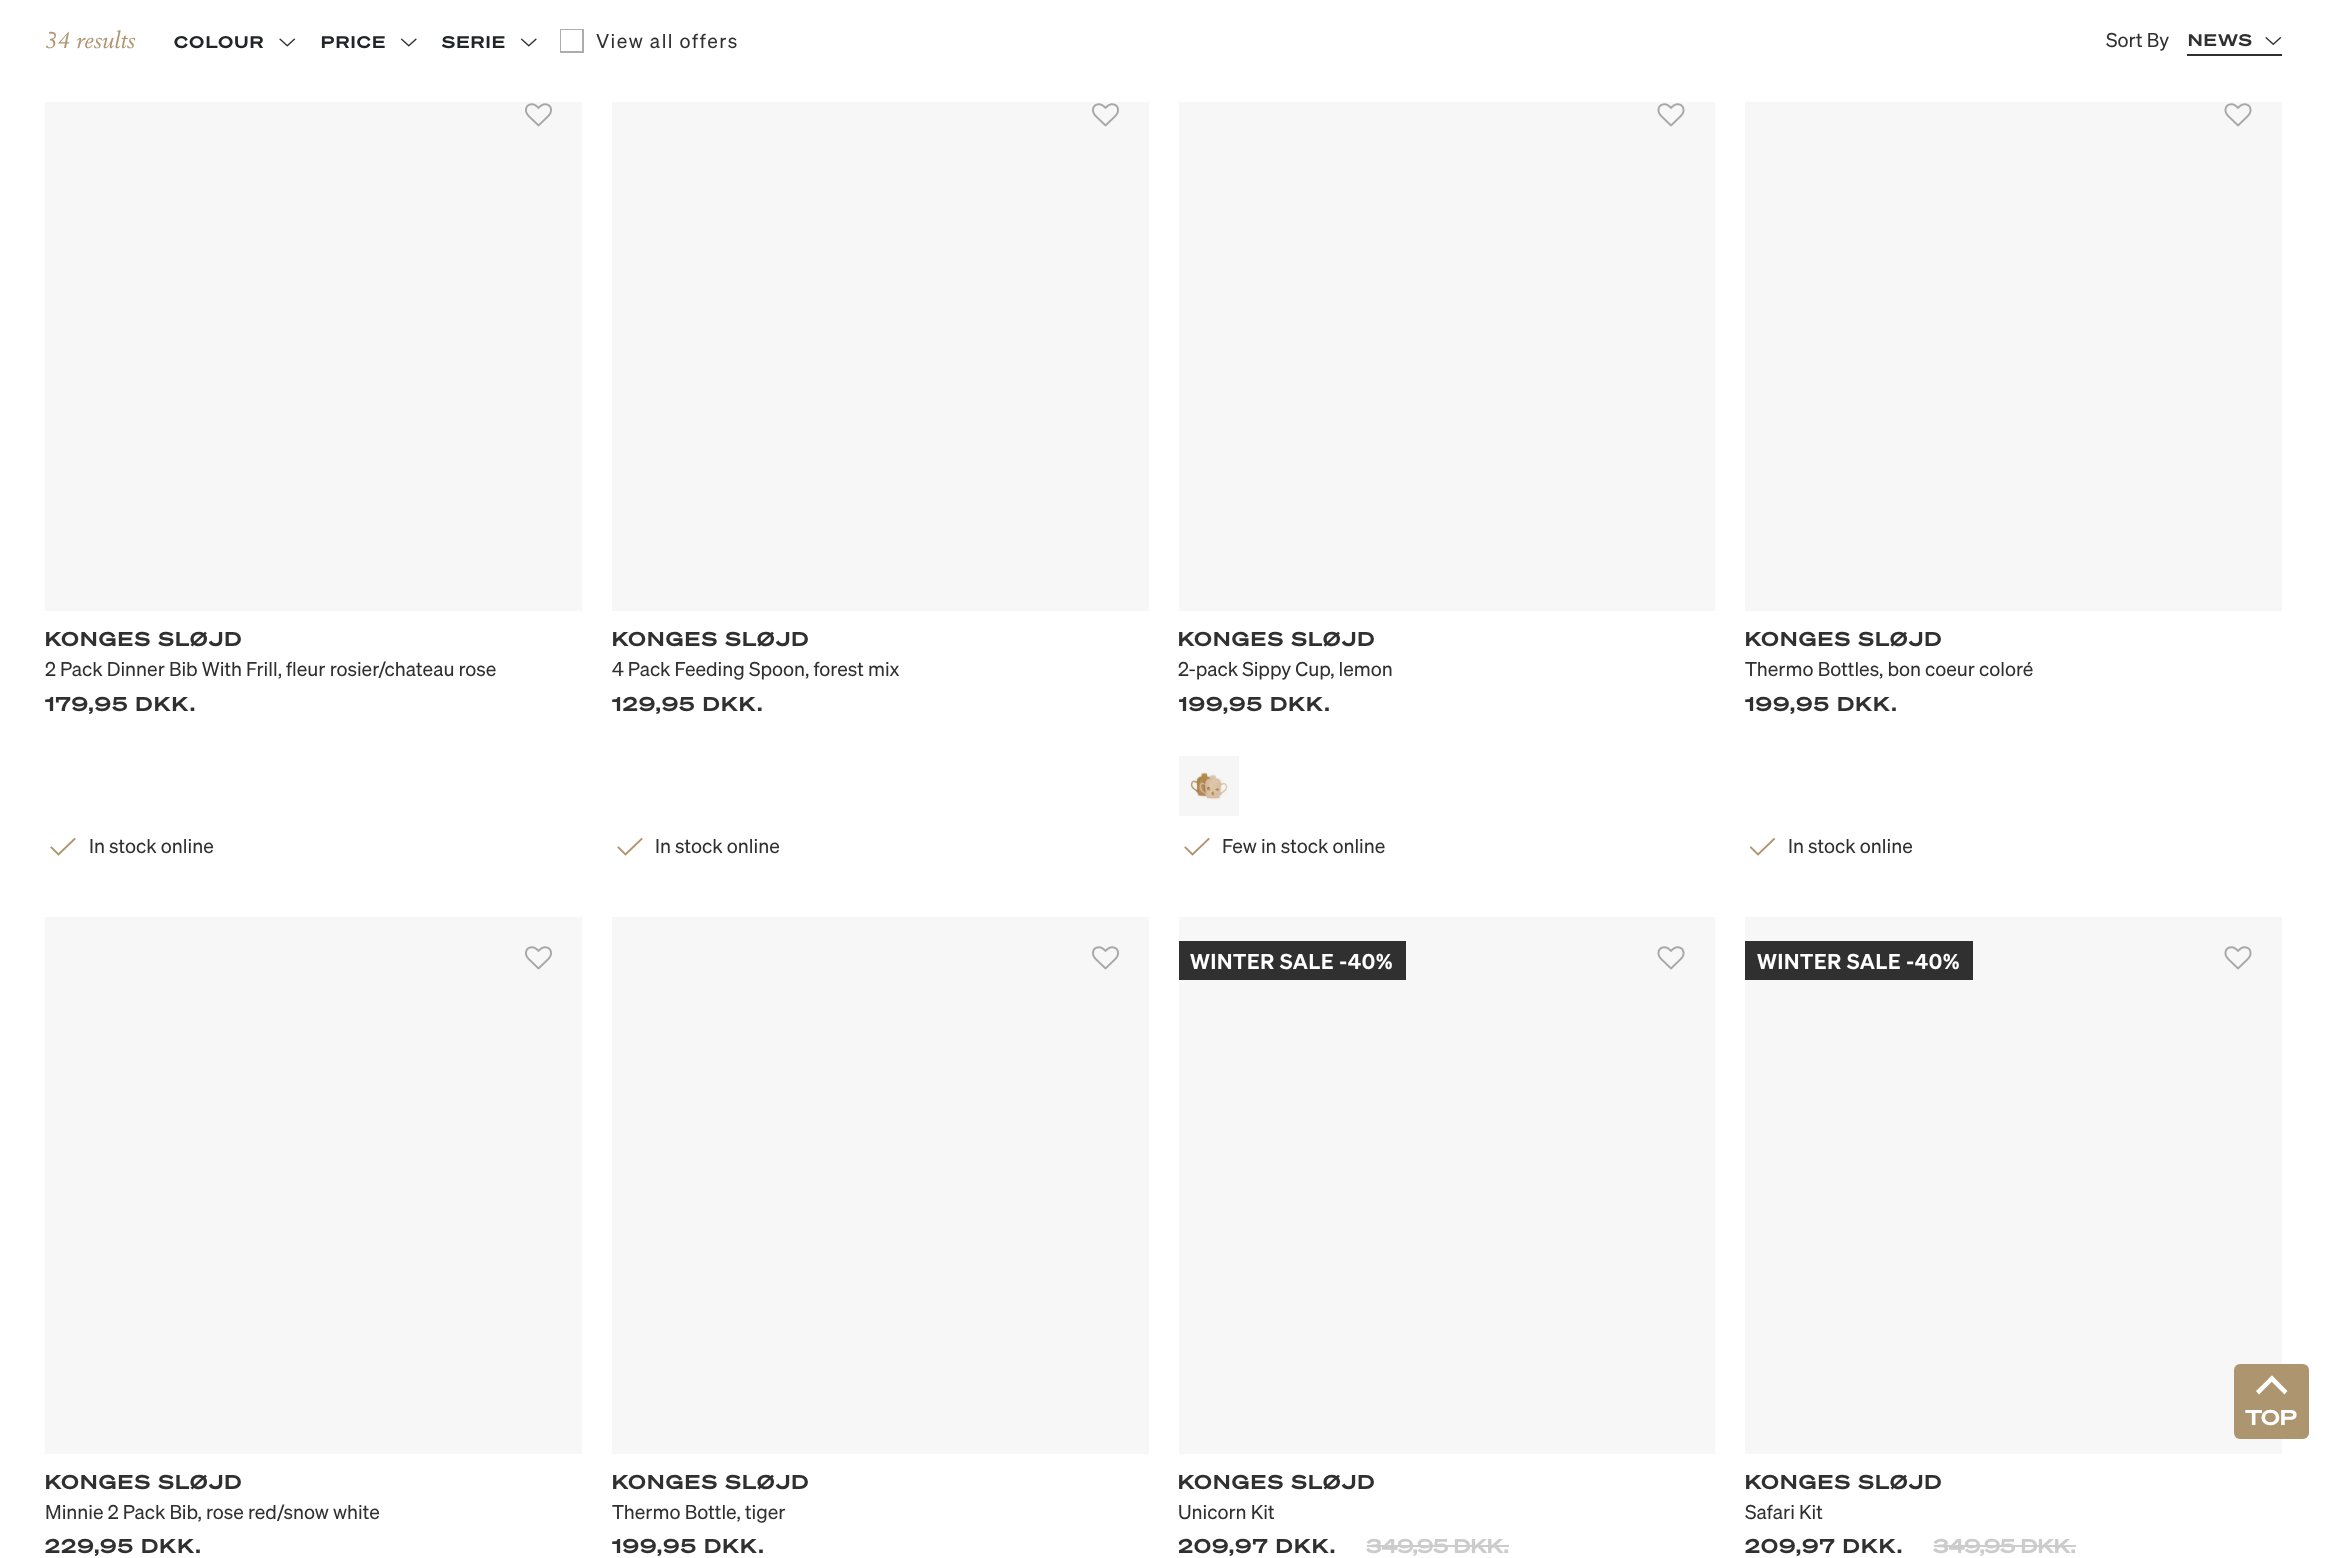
<!DOCTYPE html>
<meta charset="utf-8">
<style>body { margin: 0 } canvas { display: block }</style>
<canvas id="canvas" width="2326" height="1558"></canvas>
<img id="img1" src="img_01.png" hidden>
<img id="img2" src="img_02.png" hidden>
<img id="img3" src="img_03.png" hidden>
<img id="img4" src="img_04.png" hidden>
<img id="img5" src="img_05.png" hidden>
<img id="img6" src="img_06.png" hidden>
<script>
window.onload = function () {
	const canvas = document.getElementById("canvas");
	const ctx = canvas.getContext("2d");
	ctx.miterLimit = 4;
	ctx.fontKerning = "normal";
	function txt(s, x, y) {
		ctx.fillText(s, x, y);
	}
	function fill(x, y, w, h) {
		ctx.fillRect(x, y, w, h);
	}
	function round(x, y, w, h, r) {
		ctx.beginPath();
		ctx.roundRect(x, y, w, h, r);
		ctx.fill();
	}
	function img(id, x, y, w, h) {
		ctx.drawImage(document.getElementById(id), x, y, w, h);
	}

	ctx.fillStyle = "#FFFFFF";
	fill(0, 0, 2326, 1558);
	img("img1", 279, 38, 17, 9);
	img("img2", 401, 38, 16, 9);
	img("img2", 521, 38, 16, 9);
	ctx.strokeStyle = "#ADADAD";
	ctx.lineWidth = 2;
	ctx.strokeRect(561, 30, 22, 22);
	fill(561, 30, 21, 21);
	img("img3", 2265, 37, 17, 9);
	ctx.fillStyle = "#303030";
	fill(2187, 54, 95, 2);
	ctx.fillStyle = "#F7F7F7";
	fill(45, 102, 537, 509);
	img("img4", 525, 103, 27, 24);
	ctx.beginPath();
	ctx.moveTo(74.5, 839);
	ctx.lineTo(58.5, 854.5);
	ctx.lineTo(51.5, 847.5);
	ctx.strokeStyle = "#B0946F";
	ctx.lineWidth = 1.9;
	ctx.lineCap = "square";
	ctx.stroke();
	fill(612, 102, 537, 509);
	img("img4", 1092, 103, 27, 24);
	ctx.beginPath();
	ctx.moveTo(641.5, 839);
	ctx.lineTo(625.5, 854.5);
	ctx.lineTo(618.5, 847.5);
	ctx.stroke();
	fill(1179, 102, 536, 509);
	img("img5", 1657, 103, 28, 24);
	img("img6", 1179, 756, 60, 60);
	ctx.beginPath();
	ctx.moveTo(1208.5, 839);
	ctx.lineTo(1192.5, 854.5);
	ctx.lineTo(1185.5, 847.5);
	ctx.stroke();
	fill(1745, 102, 537, 509);
	img("img5", 2224, 103, 28, 24);
	ctx.beginPath();
	ctx.moveTo(1774, 839);
	ctx.lineTo(1758, 854.5);
	ctx.lineTo(1751, 847.5);
	ctx.stroke();
	fill(45, 917, 537, 537);
	img("img4", 525, 946, 27, 24);
	fill(612, 917, 537, 537);
	img("img4", 1092, 946, 27, 24);
	fill(1179, 917, 536, 537);
	ctx.fillStyle = "#303030";
	fill(1179, 941, 227, 39);
	img("img5", 1657, 946, 28, 24);
	ctx.fillStyle = "#CCCCCC";
	fill(1367, 1545, 142, 2);
	ctx.fillStyle = "#F7F7F7";
	fill(1745, 917, 537, 537);
	ctx.fillStyle = "#303030";
	fill(1745, 941, 228, 39);
	img("img5", 2224, 946, 28, 24);
	ctx.fillStyle = "#CCCCCC";
	fill(1934, 1545, 142, 2);
	ctx.fillStyle = "#AD956F";
	round(2234, 1364, 75, 75, 6);
	ctx.fillStyle = "#FFFFFF";
	ctx.beginPath();
	ctx.moveTo(2259, 1394.5);
	ctx.lineTo(2256, 1391);
	ctx.lineTo(2272, 1375.5);
	ctx.lineTo(2275, 1378.5);
	ctx.closePath();
	ctx.fill();
	ctx.beginPath();
	ctx.moveTo(2284.5, 1394.5);
	ctx.lineTo(2268.5, 1378.5);
	ctx.lineTo(2272, 1375.5);
	ctx.lineTo(2287.5, 1391);
	ctx.closePath();
	ctx.fill();
	ctx.font = "22.5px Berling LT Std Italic";
	ctx.fillStyle = "#B0946F";
	txt("34 results", 45, 48);
	ctx.letterSpacing = "1.5px";
	ctx.font = "bold 16.5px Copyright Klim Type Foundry";
	ctx.fillStyle = "#212529";
	txt("COLOUR", 174, 48);
	txt("PRICE", 321, 48);
	txt("SERIE", 442, 48);
	ctx.font = "19.5px Copyright Klim Type Foundry";
	ctx.fillStyle = "#303030";
	txt("View all offers", 596, 48);
	ctx.letterSpacing = "0px";
	txt("Sort By", 2106, 47);
	ctx.letterSpacing = "1.5px";
	ctx.font = "bold 16.5px Copyright Klim Type Foundry";
	txt("NEWS", 2188, 46);
	ctx.font = "bold 19.5px Copyright Klim Type Foundry";
	txt("KONGES SLØJD", 45, 646);
	ctx.letterSpacing = "0px";
	ctx.font = "19.5px Copyright Klim Type Foundry";
	txt("2 Pack Dinner Bib With Frill, fleur rosier/chateau rose", 45, 676);
	ctx.letterSpacing = "1.5px";
	ctx.font = "bold 19.5px Copyright Klim Type Foundry";
	txt("179,95 DKK.", 45, 711);
	ctx.letterSpacing = "0px";
	ctx.font = "19.5px Copyright Klim Type Foundry";
	txt("In stock online", 89, 853);
	ctx.letterSpacing = "1.5px";
	ctx.font = "bold 19.5px Copyright Klim Type Foundry";
	txt("KONGES SLØJD", 612, 646);
	ctx.letterSpacing = "0px";
	ctx.font = "19.5px Copyright Klim Type Foundry";
	txt("4 Pack Feeding Spoon, forest mix", 612, 676);
	ctx.save();
	ctx.beginPath();
	ctx.rect(612, 74, 537, 843);
	ctx.clip();
	ctx.letterSpacing = "1.5px";
	ctx.font = "bold 19.5px Copyright Klim Type Foundry";
	txt("129,95 DKK.", 612, 711);
	ctx.restore();
	txt("In stock online", 655, 853);
	ctx.letterSpacing = "1.5px";
	ctx.font = "bold 19.5px Copyright Klim Type Foundry";
	txt("KONGES SLØJD", 1178, 646);
	ctx.letterSpacing = "0px";
	ctx.font = "19.5px Copyright Klim Type Foundry";
	txt("2-pack Sippy Cup, lemon", 1178, 676);
	ctx.save();
	ctx.beginPath();
	ctx.rect(1179, 74, 536, 843);
	ctx.clip();
	ctx.letterSpacing = "1.5px";
	ctx.font = "bold 19.5px Copyright Klim Type Foundry";
	txt("199,95 DKK.", 1178, 711);
	ctx.restore();
	txt("Few in stock online", 1222, 853);
	ctx.letterSpacing = "1.5px";
	ctx.font = "bold 19.5px Copyright Klim Type Foundry";
	txt("KONGES SLØJD", 1745, 646);
	ctx.letterSpacing = "0px";
	ctx.font = "19.5px Copyright Klim Type Foundry";
	txt("Thermo Bottles, bon coeur coloré", 1745, 676);
	ctx.letterSpacing = "1.5px";
	ctx.font = "bold 19.5px Copyright Klim Type Foundry";
	txt("199,95 DKK.", 1745, 711);
	ctx.letterSpacing = "0px";
	ctx.font = "19.5px Copyright Klim Type Foundry";
	txt("In stock online", 1788, 853);
	ctx.letterSpacing = "1.5px";
	ctx.font = "bold 19.5px Copyright Klim Type Foundry";
	txt("KONGES SLØJD", 45, 1489);
	ctx.letterSpacing = "0px";
	ctx.font = "19.5px Copyright Klim Type Foundry";
	txt("Minnie 2 Pack Bib, rose red/snow white", 45, 1519);
	ctx.letterSpacing = "1.5px";
	ctx.font = "bold 19.5px Copyright Klim Type Foundry";
	txt("229,95 DKK.", 45, 1553);
	txt("KONGES SLØJD", 612, 1489);
	ctx.letterSpacing = "0px";
	ctx.font = "19.5px Copyright Klim Type Foundry";
	txt("Thermo Bottle, tiger", 612, 1519);
	ctx.save();
	ctx.beginPath();
	ctx.rect(612, 917, 537, 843);
	ctx.clip();
	ctx.letterSpacing = "1.5px";
	ctx.font = "bold 19.5px Copyright Klim Type Foundry";
	txt("199,95 DKK.", 612, 1553);
	ctx.restore();
	ctx.letterSpacing = "0.75px";
	ctx.font = "600 21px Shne";
	ctx.fillStyle = "#FFFFFF";
	txt("WINTER SALE -40%", 1190, 969);
	ctx.letterSpacing = "1.5px";
	ctx.font = "bold 19.5px Copyright Klim Type Foundry";
	ctx.fillStyle = "#303030";
	txt("KONGES SLØJD", 1178, 1489);
	ctx.letterSpacing = "0px";
	ctx.font = "19.5px Copyright Klim Type Foundry";
	txt("Unicorn Kit", 1178, 1519);
	ctx.save();
	ctx.beginPath();
	ctx.rect(1179, 917, 536, 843);
	ctx.clip();
	ctx.letterSpacing = "1.5px";
	ctx.font = "bold 19.5px Copyright Klim Type Foundry";
	txt("209,97 DKK.", 1178, 1553);
	ctx.restore();
	ctx.font = "bold 19.5px Copyright Klim Type Foundry";
	ctx.fillStyle = "#CCCCCC";
	txt("349,95 DKK.", 1366, 1553);
	ctx.letterSpacing = "0.75px";
	ctx.font = "600 21px Shne";
	ctx.fillStyle = "#FFFFFF";
	txt("WINTER SALE -40%", 1757, 969);
	ctx.letterSpacing = "1.5px";
	ctx.font = "bold 19.5px Copyright Klim Type Foundry";
	ctx.fillStyle = "#303030";
	txt("KONGES SLØJD", 1745, 1489);
	ctx.letterSpacing = "0px";
	ctx.font = "19.5px Copyright Klim Type Foundry";
	txt("Safari Kit", 1745, 1519);
	ctx.letterSpacing = "1.5px";
	ctx.font = "bold 19.5px Copyright Klim Type Foundry";
	txt("209,97 DKK.", 1745, 1553);
	ctx.letterSpacing = "0px";
	ctx.fillStyle = "#CCCCCC";
	txt("349,95 DKK.", 1933, 1553);
	ctx.font = "bold 21px Copyright Klim Type Foundry";
	ctx.fillStyle = "#FFFFFF";
	txt("TOP", 2245, 1425);
};
</script>
